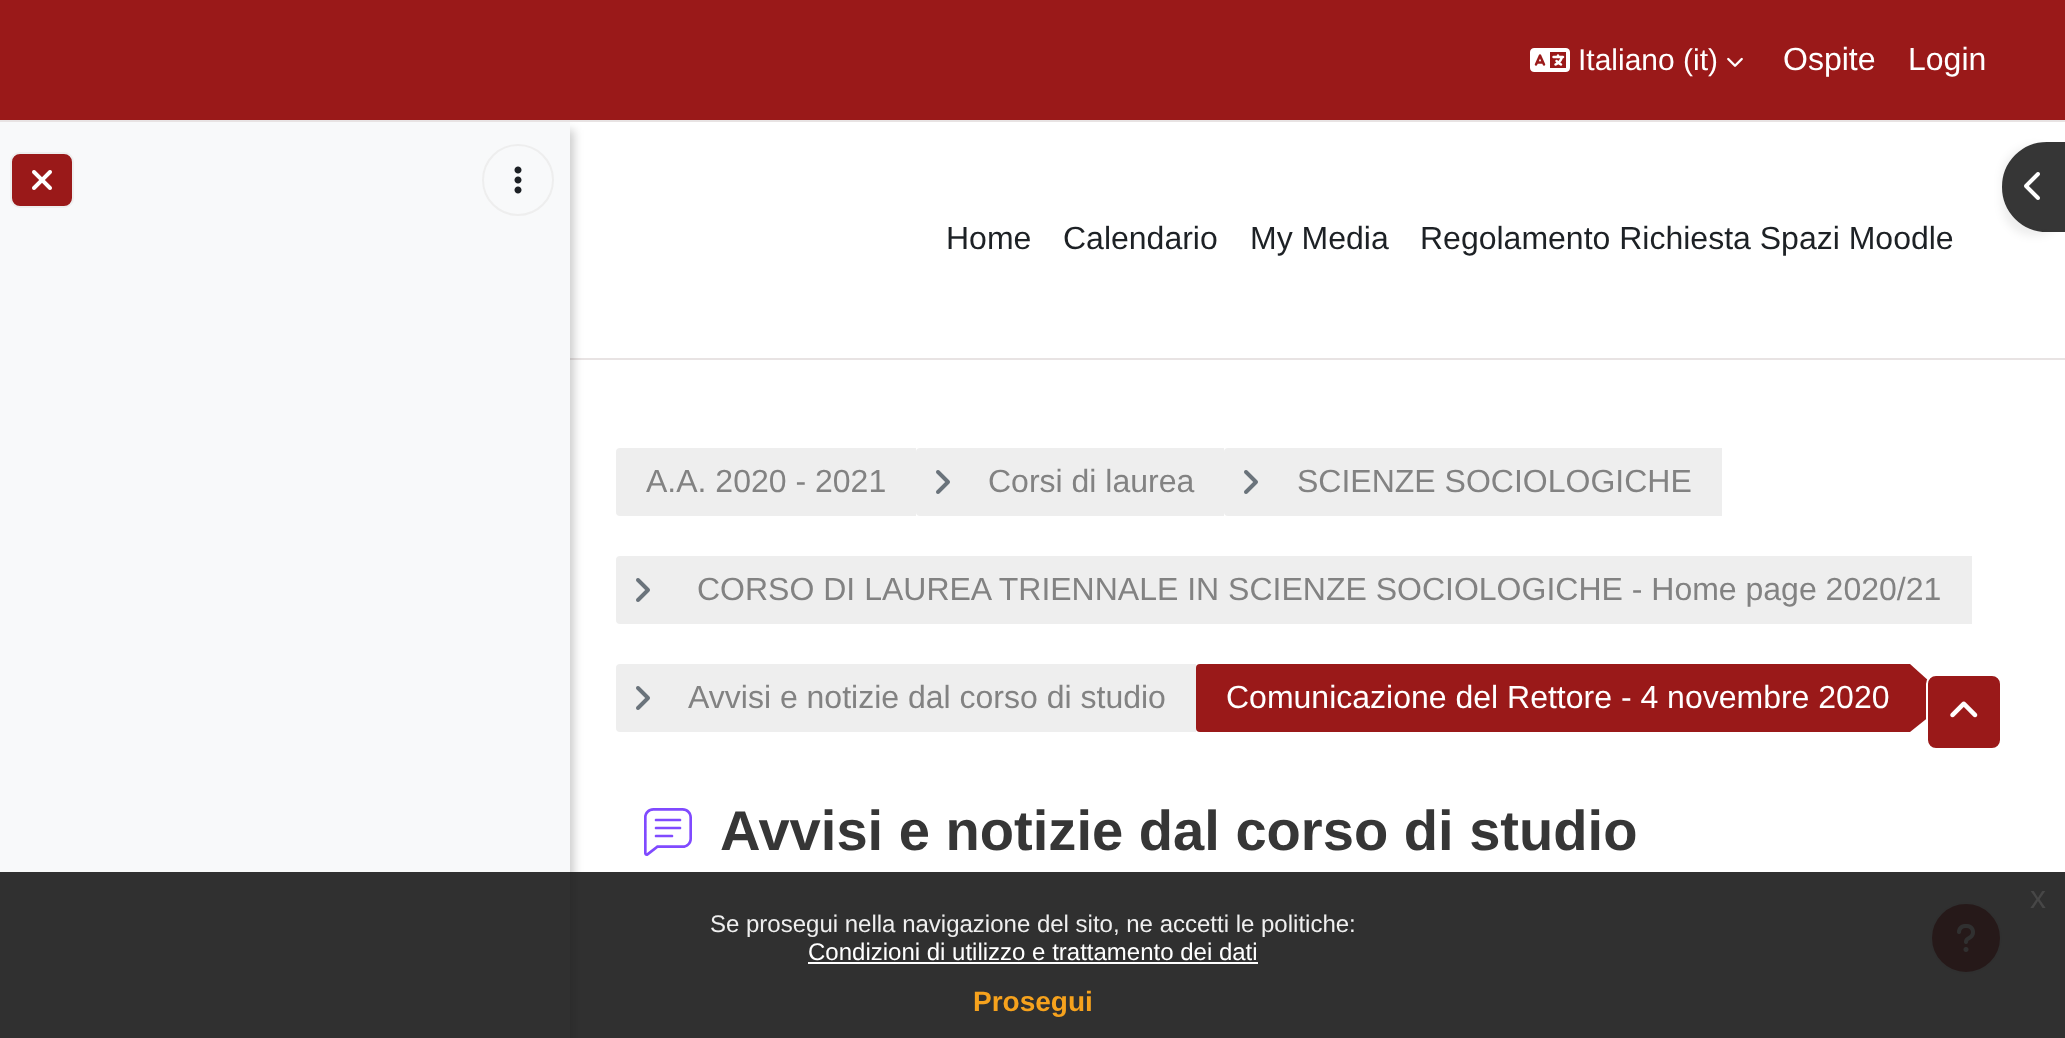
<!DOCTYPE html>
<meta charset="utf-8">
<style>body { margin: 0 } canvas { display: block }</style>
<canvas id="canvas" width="2065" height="1038"></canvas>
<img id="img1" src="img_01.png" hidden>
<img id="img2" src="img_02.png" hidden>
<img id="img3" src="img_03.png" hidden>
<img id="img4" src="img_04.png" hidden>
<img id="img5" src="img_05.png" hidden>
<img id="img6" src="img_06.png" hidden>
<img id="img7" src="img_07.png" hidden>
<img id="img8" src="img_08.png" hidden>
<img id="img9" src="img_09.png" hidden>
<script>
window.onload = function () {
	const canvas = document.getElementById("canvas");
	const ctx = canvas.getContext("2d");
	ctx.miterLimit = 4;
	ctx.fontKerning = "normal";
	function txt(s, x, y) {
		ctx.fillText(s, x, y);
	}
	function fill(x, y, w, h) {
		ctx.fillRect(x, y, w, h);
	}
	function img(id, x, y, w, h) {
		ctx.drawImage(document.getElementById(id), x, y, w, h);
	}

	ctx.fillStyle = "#FFFFFF";
	fill(0, 0, 2065, 1038);
	ctx.fillStyle = "#E8E3E3";
	fill(570, 358, 1495, 2);
	ctx.fillStyle = "rgba(0, 0, 0, 0.2)";
	ctx.filter = "blur(5px)";
	ctx.beginPath();
	ctx.rect(4, 130, 570, 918);
	ctx.fill();
	ctx.filter = "none";
	ctx.fillStyle = "#9A1919";
	fill(0, 0, 2065, 120);
	ctx.fillStyle = "#E8E3E3";
	fill(0, 120, 2065, 2);
	img("img1", 1530, 48, 40, 24);
	img("img2", 1727, 57, 16, 10);
	ctx.fillStyle = "#F8F9FA";
	fill(0, 122, 570, 916);
	ctx.fillStyle = "#9A1919";
	ctx.beginPath();
	ctx.roundRect(11, 153, 62, 54, 9);
	ctx.fill();
	ctx.strokeStyle = "#EEEEEE";
	ctx.lineWidth = 2;
	ctx.stroke();
	img("img3", 32, 170, 20, 20);
	ctx.beginPath();
	ctx.arc(518, 180, 35, 0, Math.PI * 2);
	ctx.stroke();
	img("img4", 514, 166, 8, 28);
	ctx.fillStyle = "rgba(0, 0, 0, 0.07)";
	ctx.filter = "blur(4px)";
	ctx.beginPath();
	ctx.roundRect(2002, 146, 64, 90, 45);
	ctx.fill();
	ctx.filter = "none";
	ctx.fillStyle = "#363636";
	ctx.beginPath();
	ctx.moveTo(2047, 143);
	ctx.lineTo(2065, 143);
	ctx.lineTo(2065, 231);
	ctx.lineTo(2047, 231);
	ctx.bezierCurveTo(2022.5, 231, 2003, 211.5, 2003, 187);
	ctx.bezierCurveTo(2003, 162.5, 2022.5, 143, 2047, 143);
	ctx.closePath();
	ctx.fill();
	ctx.strokeStyle = "#363636";
	ctx.stroke();
	img("img5", 2024, 172, 16, 28);
	ctx.fillStyle = "#EEEEEE";
	ctx.beginPath();
	ctx.roundRect(616, 448, 300, 68, [4, 0, 0, 4]);
	ctx.fill();
	ctx.beginPath();
	ctx.roundRect(916, 448, 308, 68, [4, 0, 0, 4]);
	ctx.fill();
	img("img6", 936, 470, 14, 24);
	ctx.beginPath();
	ctx.roundRect(1224, 448, 498, 68, [4, 0, 0, 4]);
	ctx.fill();
	img("img6", 1244, 470, 14, 24);
	ctx.beginPath();
	ctx.roundRect(616, 556, 1356, 68, [4, 0, 0, 4]);
	ctx.fill();
	img("img6", 636, 578, 14, 24);
	ctx.beginPath();
	ctx.roundRect(616, 664, 580, 68, [4, 0, 0, 4]);
	ctx.fill();
	img("img6", 636, 686, 14, 24);
	ctx.fillStyle = "#9A1919";
	ctx.beginPath();
	ctx.roundRect(1196, 664, 714, 68, [4, 0, 0, 4]);
	ctx.fill();
	ctx.beginPath();
	ctx.moveTo(1910, 732);
	ctx.lineTo(1910, 664);
	ctx.lineTo(1950, 700);
	ctx.closePath();
	ctx.fill();
	img("img7", 644, 808, 48, 48);
	ctx.beginPath();
	ctx.roundRect(1927, 675, 74, 74, 9);
	ctx.fill();
	ctx.strokeStyle = "#FFFFFF";
	ctx.stroke();
	img("img8", 1950, 701, 28, 17);
	ctx.beginPath();
	ctx.arc(1966, 938, 35, 0, Math.PI * 2);
	ctx.fill();
	ctx.strokeStyle = "#EEEEEE";
	ctx.stroke();
	img("img9", 1957, 924, 18, 28);
	ctx.fillStyle = "rgba(25, 25, 25, 0.9)";
	fill(0, 872, 2065, 166);
	ctx.fillStyle = "#FFFFFF";
	fill(808, 962, 450, 2);
	ctx.font = "30px Liberation Sans";
	txt("Italiano (it)", 1578, 70);
	ctx.font = "32px Liberation Sans";
	txt("Ospite", 1783, 70);
	txt("Login", 1908, 70);
	ctx.fillStyle = "#1D2125";
	txt("Home", 946, 249);
	txt("Calendario", 1063, 249);
	txt("My Media", 1250, 249);
	txt("Regolamento Richiesta Spazi Moodle", 1420, 249);
	ctx.fillStyle = "#828282";
	txt("A.A. 2020 - 2021", 646, 492);
	txt("Corsi di laurea", 988, 492);
	txt("SCIENZE SOCIOLOGICHE", 1297, 492);
	txt("CORSO DI LAUREA TRIENNALE IN SCIENZE SOCIOLOGICHE - Home page 2020/21", 697, 600);
	txt("Avvisi e notizie dal corso di studio", 688, 708);
	ctx.fillStyle = "#FFFFFF";
	txt("Comunicazione del Rettore - 4 novembre 2020", 1226, 708);
	ctx.font = "bold 56.1px Liberation Sans";
	ctx.fillStyle = "#363636";
	txt("Avvisi e notizie dal corso di studio", 720, 850);
	ctx.font = "32px Liberation Sans";
	ctx.fillStyle = "#474747";
	txt("x", 2030, 908);
	ctx.font = "24px Liberation Sans";
	ctx.fillStyle = "#EFEFEF";
	txt("Se prosegui nella navigazione del sito, ne accetti le politiche:", 710, 932);
	ctx.fillStyle = "#FFFFFF";
	txt("Condizioni di utilizzo e trattamento dei dati", 808, 960);
	ctx.font = "bold 28px Liberation Sans";
	ctx.fillStyle = "#F6A21D";
	txt("Prosegui", 973, 1011);
};
</script>
